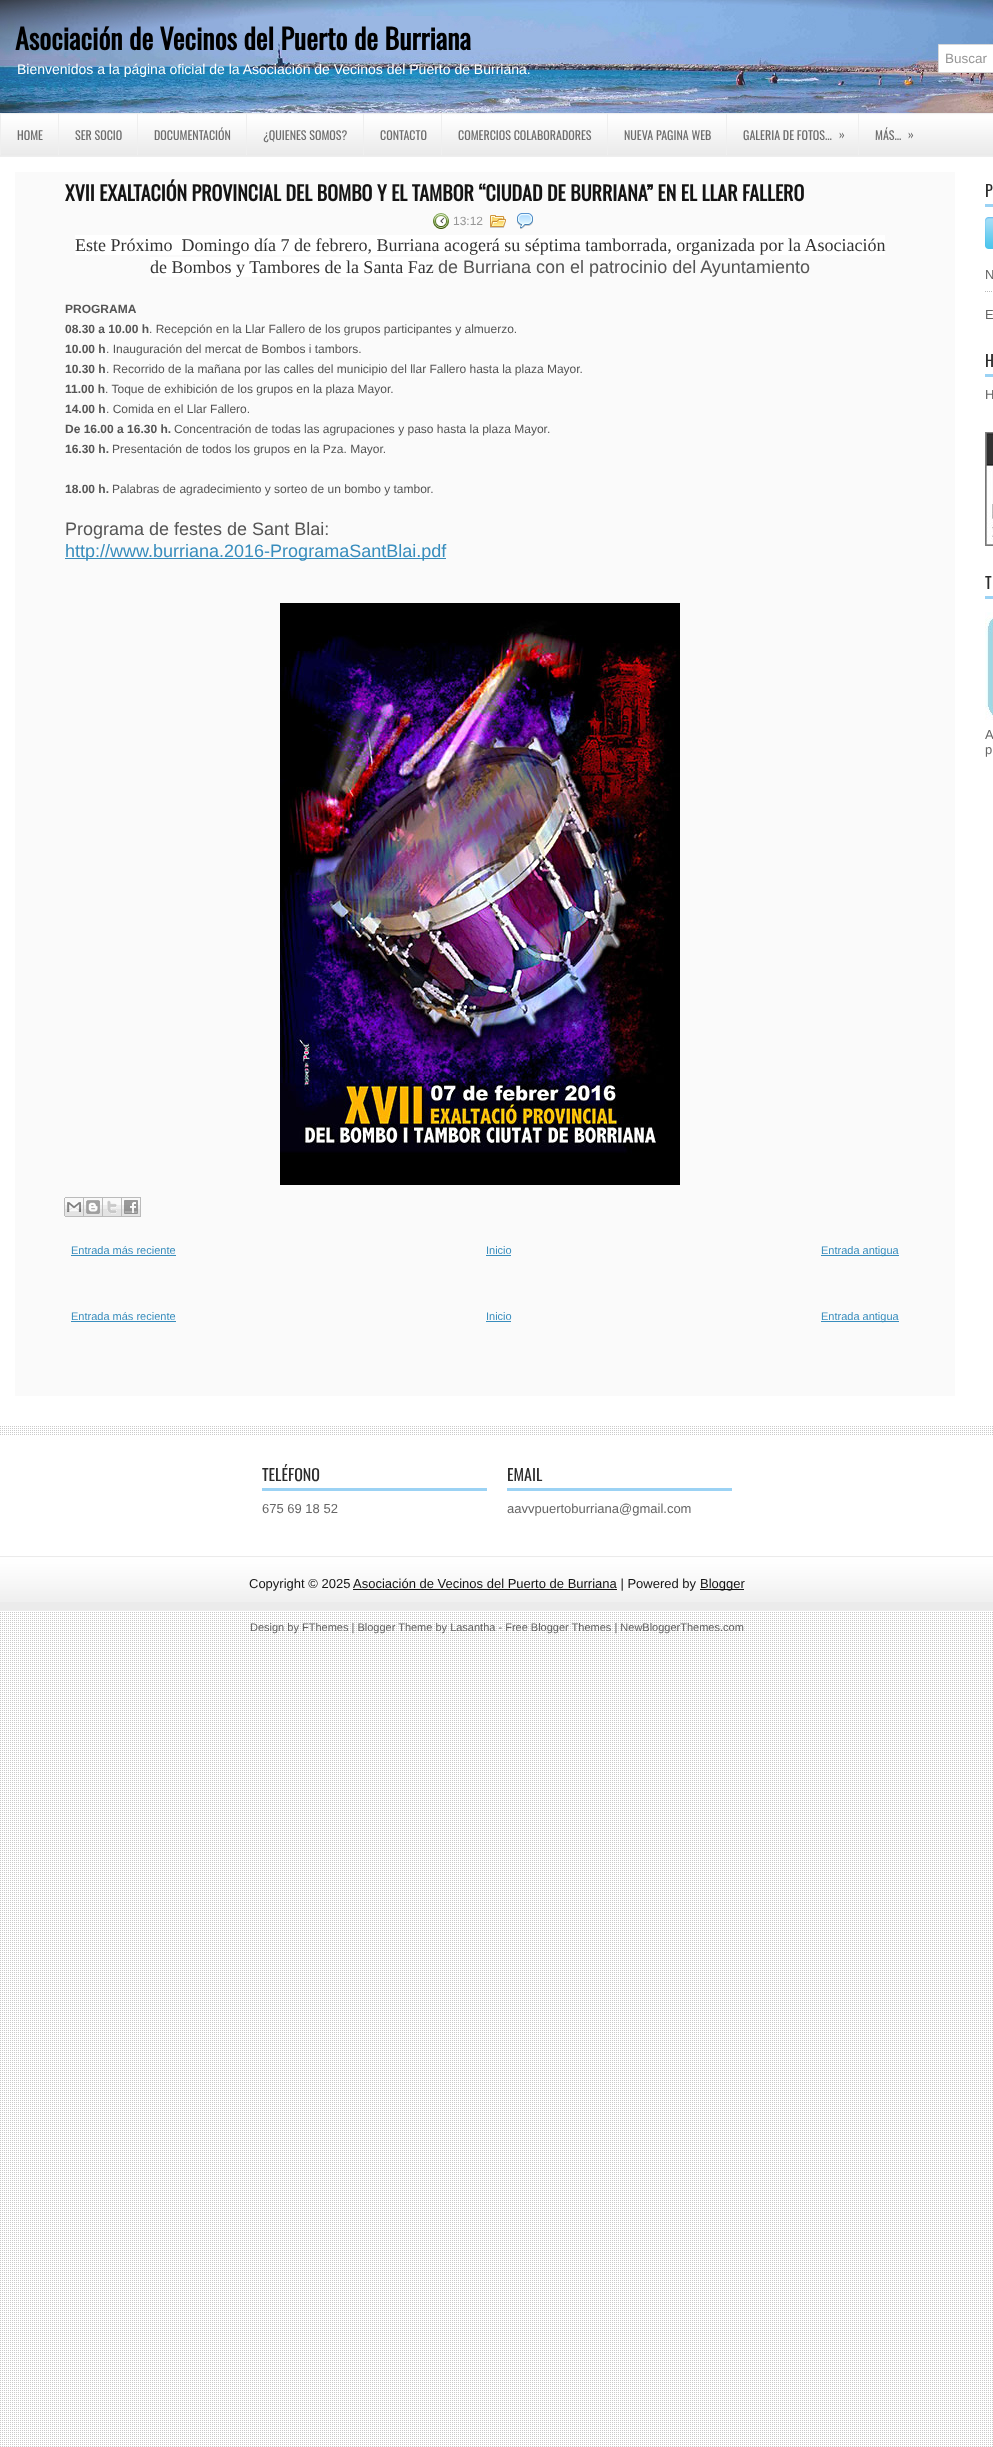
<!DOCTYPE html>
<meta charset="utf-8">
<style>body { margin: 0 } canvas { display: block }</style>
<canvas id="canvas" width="993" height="2447"></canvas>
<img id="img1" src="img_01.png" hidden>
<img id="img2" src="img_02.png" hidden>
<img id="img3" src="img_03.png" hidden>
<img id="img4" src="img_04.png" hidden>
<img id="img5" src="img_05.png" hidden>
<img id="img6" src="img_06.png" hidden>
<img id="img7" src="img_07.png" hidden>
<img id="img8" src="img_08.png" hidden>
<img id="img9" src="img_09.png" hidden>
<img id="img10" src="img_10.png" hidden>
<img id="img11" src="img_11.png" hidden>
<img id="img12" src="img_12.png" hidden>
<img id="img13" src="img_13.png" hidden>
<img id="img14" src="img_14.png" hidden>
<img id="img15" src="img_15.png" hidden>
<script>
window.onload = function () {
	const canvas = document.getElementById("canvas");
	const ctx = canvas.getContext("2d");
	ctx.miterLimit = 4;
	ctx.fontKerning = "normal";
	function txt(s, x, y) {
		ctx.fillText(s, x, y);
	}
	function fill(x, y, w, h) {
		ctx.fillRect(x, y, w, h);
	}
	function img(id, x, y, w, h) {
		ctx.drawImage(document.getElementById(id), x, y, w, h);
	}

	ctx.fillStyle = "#FFFFFF";
	fill(0, 0, 993, 2447);
	img("img1", 0, 1426, 993, 1021);
	img("img2", 0, 113, 993, 44);
	img("img3", 0, 0, 993, 113);
	ctx.beginPath();
	ctx.rect(938.5, 44.5, 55, 28);
	ctx.fill();
	ctx.strokeStyle = "#D8D8D8";
	ctx.stroke();
	ctx.fillStyle = "#EFEFEF";
	fill(0, 114, 1, 41);
	fill(58, 114, 1, 41);
	fill(137, 114, 1, 41);
	fill(246, 114, 1, 41);
	fill(363, 114, 1, 41);
	fill(441, 114, 1, 41);
	fill(607, 114, 1, 41);
	fill(726, 114, 1, 41);
	fill(858, 114, 1, 41);
	ctx.fillStyle = "#FAFAFA";
	fill(15, 172, 940, 1224);
	img("img4", 433, 213, 16, 16);
	img("img5", 490, 215, 16, 13);
	img("img6", 517, 213, 16, 16);
	ctx.fillStyle = "#FFFFFF";
	fill(75, 235, 810, 20);
	fill(150, 257, 283, 20);
	ctx.fillStyle = "#388DBD";
	fill(65, 558, 381, 1);
	img("img7", 280, 603, 400, 582);
	img("img8", 64, 1197, 20, 20);
	img("img9", 84, 1197, 19, 20);
	img("img10", 103, 1197, 19, 20);
	img("img11", 122, 1197, 19, 20);
	fill(71, 1255, 105, 1);
	fill(486, 1255, 25, 1);
	fill(821, 1255, 78, 1);
	fill(71, 1321, 105, 1);
	fill(486, 1321, 25, 1);
	fill(821, 1321, 78, 1);
	ctx.fillStyle = "#9BD2F4";
	fill(985, 204, 8, 3);
	img("img12", 985, 217, 8, 32);
	ctx.beginPath();
	ctx.moveTo(985, 291.5);
	ctx.lineTo(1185, 291.5);
	ctx.strokeStyle = "#B9B9B9";
	ctx.setLineDash([1, 1]);
	ctx.stroke();
	fill(985, 374, 8, 3);
	img("img13", 985, 432, 8, 114);
	fill(985, 596, 8, 3);
	img("img14", 985, 612, 8, 108);
	ctx.fillStyle = "#FFFFFF";
	fill(0, 1436, 993, 119);
	ctx.fillStyle = "#9BD2F4";
	fill(262, 1488, 225, 3);
	fill(507, 1488, 225, 3);
	ctx.fillStyle = "#EBEBEB";
	fill(0, 1556, 993, 55);
	img("img15", 0, 1557, 993, 45);
	ctx.fillStyle = "#141414";
	fill(353, 1589, 264, 1);
	fill(700, 1589, 44, 1);
	ctx.font = "bold 28px Oswald";
	ctx.fillStyle = "#000000";
	txt("Asociación de Vecinos del Puerto de Burriana", 15, 50);
	ctx.font = "14px Liberation Sans";
	ctx.fillStyle = "#FFFFFF";
	txt("Bienvenidos a la página oficial de la Asociación de Vecinos del Puerto de Burriana.", 17, 74);
	ctx.font = "13.5px Liberation Sans";
	ctx.fillStyle = "#979797";
	txt("Buscar", 945, 63);
	ctx.font = "12px Oswald";
	ctx.fillStyle = "#6D6D6D";
	txt("HOME", 17, 140);
	txt("SER SOCIO", 75, 140);
	txt("DOCUMENTACIÓN", 154, 140);
	txt("¿QUIENES SOMOS?", 263, 140);
	txt("CONTACTO", 380, 140);
	txt("COMERCIOS COLABORADORES", 458, 140);
	txt("NUEVA PAGINA WEB", 624, 140);
	txt("GALERIA DE FOTOS...", 743, 140);
	txt("»", 839, 139);
	txt("MÁS...", 875, 140);
	txt("»", 908, 139);
	ctx.font = "bold 20px Oswald";
	ctx.fillStyle = "#141414";
	txt("XVII EXALTACIÓN PROVINCIAL DEL BOMBO Y EL TAMBOR “CIUDAD DE BURRIANA” EN EL LLAR FALLERO", 65, 201);
	ctx.font = "12px Liberation Sans";
	ctx.fillStyle = "#979797";
	txt("13:12", 453, 225);
	ctx.font = "18px Liberation Serif";
	ctx.fillStyle = "#333333";
	txt("Este Próximo  Domingo día 7 de febrero, Burriana acogerá su séptima tamborrada, organizada por la Asociación", 75, 251);
	txt("de Bombos y Tambores de la Santa Faz", 150, 273);
	ctx.font = "18px Liberation Sans";
	ctx.fillStyle = "#555555";
	txt("de Burriana con el patrocinio del Ayuntamiento", 438, 273);
	ctx.font = "bold 12px Liberation Sans";
	txt("PROGRAMA", 65, 313);
	txt("08.30 a 10.00 h", 65, 333);
	ctx.font = "12px Liberation Sans";
	txt(". Recepción en la Llar Fallero de los grupos participantes y almuerzo.", 149, 333);
	ctx.font = "bold 12px Liberation Sans";
	txt("10.00 h", 65, 353);
	ctx.font = "12px Liberation Sans";
	txt(". Inauguración del mercat de Bombos i tambors.", 106, 353);
	ctx.font = "bold 12px Liberation Sans";
	txt("10.30 h", 65, 373);
	ctx.font = "12px Liberation Sans";
	txt(". Recorrido de la mañana por las calles del municipio del llar Fallero hasta la plaza Mayor.", 106, 373);
	ctx.font = "bold 12px Liberation Sans";
	txt("11.00 h", 65, 393);
	ctx.font = "12px Liberation Sans";
	txt(". Toque de exhibición de los grupos en la plaza Mayor.", 105, 393);
	ctx.font = "bold 12px Liberation Sans";
	txt("14.00 h", 65, 413);
	ctx.font = "12px Liberation Sans";
	txt(". Comida en el Llar Fallero.", 106, 413);
	ctx.font = "bold 12px Liberation Sans";
	txt("De 16.00 a 16.30 h.", 65, 433);
	ctx.font = "12px Liberation Sans";
	txt("Concentración de todas las agrupaciones y paso hasta la plaza Mayor.", 174, 433);
	ctx.font = "bold 12px Liberation Sans";
	txt("16.30 h.", 65, 453);
	ctx.font = "12px Liberation Sans";
	txt("Presentación de todos los grupos en la Pza. Mayor.", 112, 453);
	ctx.font = "bold 12px Liberation Sans";
	txt("18.00 h.", 65, 493);
	ctx.font = "12px Liberation Sans";
	txt("Palabras de agradecimiento y sorteo de un bombo y tambor.", 112, 493);
	ctx.font = "18px Liberation Sans";
	txt("Programa de festes de Sant Blai:", 65, 535);
	ctx.fillStyle = "#388DBD";
	txt("http://www.burriana.2016-ProgramaSantBlai.pdf", 65, 557);
	ctx.font = "11px Liberation Sans";
	txt("Entrada más reciente", 71, 1254);
	txt("Inicio", 486, 1254);
	txt("Entrada antigua", 821, 1254);
	txt("Entrada más reciente", 71, 1320);
	txt("Inicio", 486, 1320);
	txt("Entrada antigua", 821, 1320);
	ctx.font = "16px Oswald";
	ctx.fillStyle = "#2C2C2C";
	txt("P", 985, 197);
	ctx.font = "13px Liberation Sans";
	ctx.fillStyle = "#666666";
	txt("N", 985, 279);
	txt("E", 985, 319);
	ctx.font = "16px Oswald";
	ctx.fillStyle = "#2C2C2C";
	txt("H", 985, 367);
	ctx.font = "13px Liberation Sans";
	ctx.fillStyle = "#666666";
	txt("H", 985, 399);
	ctx.font = "16px Oswald";
	ctx.fillStyle = "#2C2C2C";
	txt("T", 985, 589);
	ctx.font = "13px Liberation Sans";
	ctx.fillStyle = "#666666";
	txt("A", 985, 739);
	txt("p", 985, 754);
	ctx.font = "16px Oswald";
	ctx.fillStyle = "#2C2C2C";
	txt("TELÉFONO", 262, 1481);
	ctx.font = "13px Liberation Sans";
	ctx.fillStyle = "#666666";
	txt("675 69 18 52", 262, 1513);
	ctx.font = "16px Oswald";
	ctx.fillStyle = "#2C2C2C";
	txt("EMAIL", 507, 1481);
	ctx.font = "13px Liberation Sans";
	ctx.fillStyle = "#666666";
	txt("aavvpuertoburriana@gmail.com", 507, 1513);
	ctx.fillStyle = "#141414";
	txt("Copyright © 2025", 249, 1588);
	txt("Asociación de Vecinos del Puerto de Burriana | Powered by", 353, 1588);
	txt("Blogger", 700, 1588);
	ctx.font = "11px Liberation Sans";
	ctx.fillStyle = "#606060";
	txt("Design by FThemes | Blogger Theme by Lasantha - Free Blogger Themes | NewBloggerThemes.com", 250, 1631);
};
</script>
